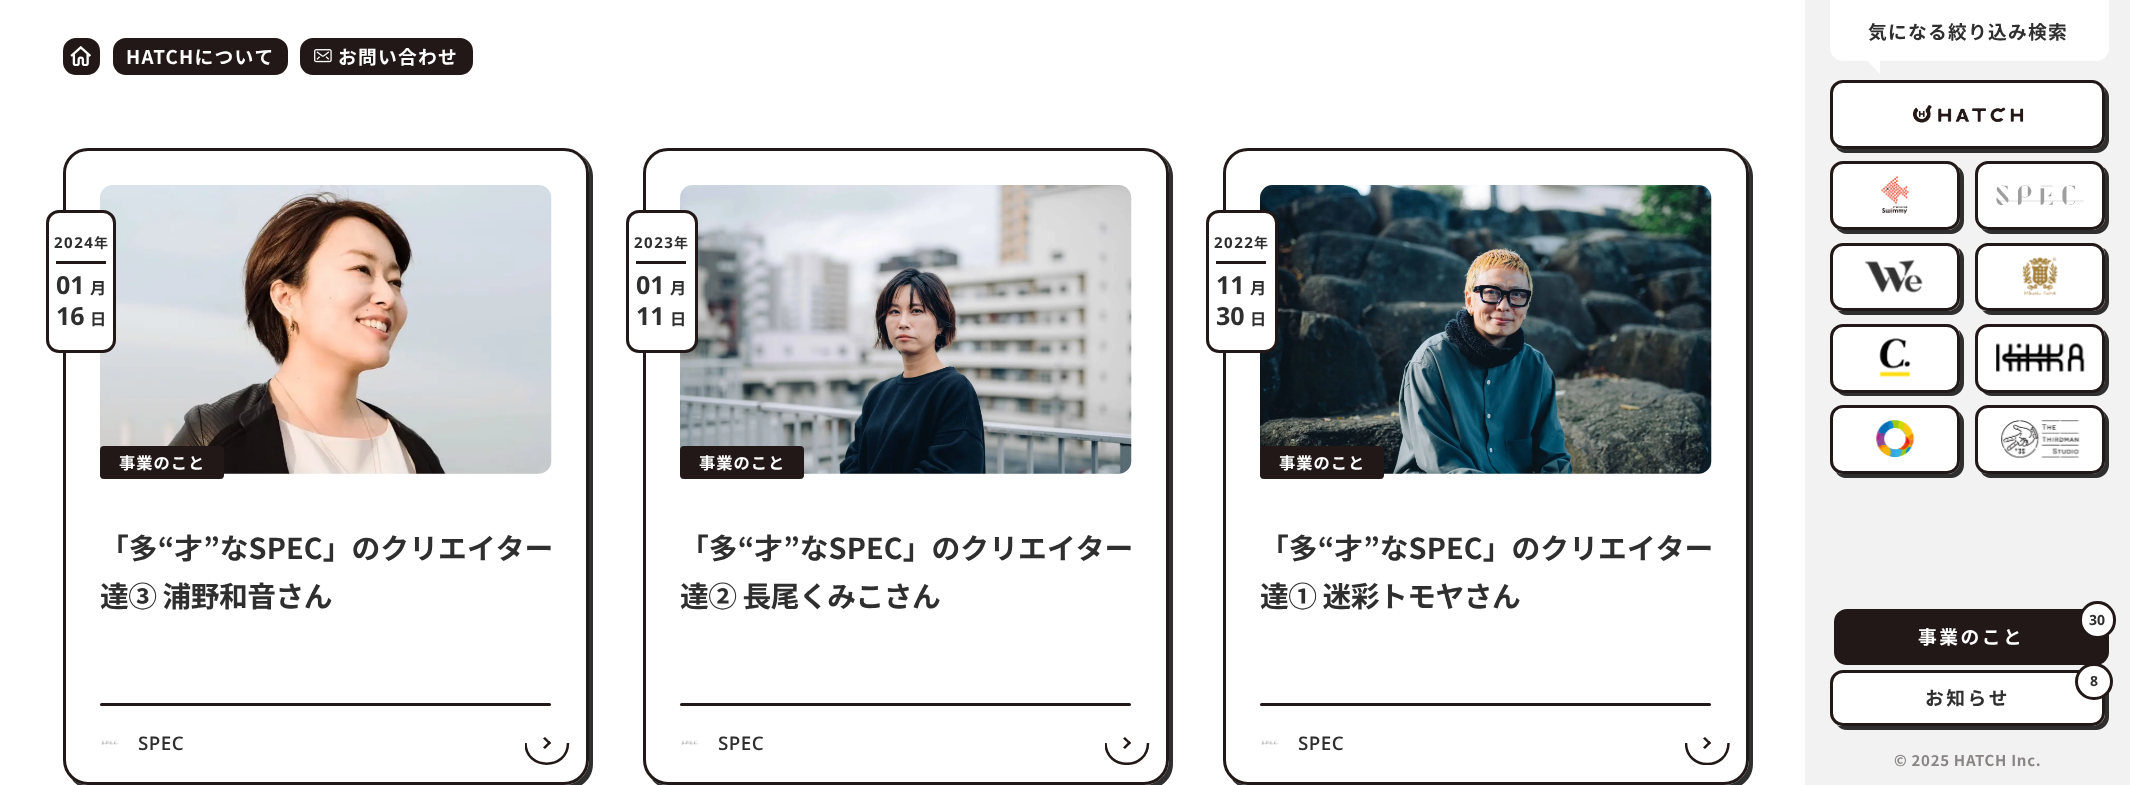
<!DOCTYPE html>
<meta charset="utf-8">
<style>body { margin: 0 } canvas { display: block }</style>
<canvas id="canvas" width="2130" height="785"></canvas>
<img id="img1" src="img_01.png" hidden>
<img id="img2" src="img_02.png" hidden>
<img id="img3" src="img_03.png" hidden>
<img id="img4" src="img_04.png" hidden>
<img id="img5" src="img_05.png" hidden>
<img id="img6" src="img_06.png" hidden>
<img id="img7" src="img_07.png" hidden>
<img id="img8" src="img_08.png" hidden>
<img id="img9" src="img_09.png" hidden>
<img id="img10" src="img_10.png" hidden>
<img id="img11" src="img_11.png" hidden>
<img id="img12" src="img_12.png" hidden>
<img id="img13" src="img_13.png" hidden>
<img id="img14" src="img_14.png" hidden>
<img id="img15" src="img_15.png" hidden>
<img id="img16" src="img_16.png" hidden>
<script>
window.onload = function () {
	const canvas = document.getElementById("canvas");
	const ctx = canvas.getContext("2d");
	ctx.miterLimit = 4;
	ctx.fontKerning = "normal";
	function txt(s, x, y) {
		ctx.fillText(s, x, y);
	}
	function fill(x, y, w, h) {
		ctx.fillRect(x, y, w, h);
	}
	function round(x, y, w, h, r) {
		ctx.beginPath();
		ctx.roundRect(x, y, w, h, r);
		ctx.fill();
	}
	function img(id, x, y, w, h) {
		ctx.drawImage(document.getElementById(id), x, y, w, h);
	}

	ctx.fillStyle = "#FFFFFF";
	fill(0, 0, 2130, 785);
	ctx.fillStyle = "#221817";
	ctx.beginPath();
	ctx.roundRect(64.5, 39.5, 34, 34, 11.5);
	ctx.fill();
	ctx.strokeStyle = "#221817";
	ctx.lineWidth = 3;
	ctx.stroke();
	img("img1", 70, 46, 21, 20);
	ctx.beginPath();
	ctx.roundRect(114.5, 39.5, 172, 34, 11.5);
	ctx.fill();
	ctx.stroke();
	ctx.beginPath();
	ctx.roundRect(301.5, 39.5, 170, 34, 11.5);
	ctx.fill();
	ctx.stroke();
	img("img2", 314, 49, 18, 14);
	ctx.fillStyle = "#F2F2F2";
	fill(1805, 0, 325, 785);
	ctx.fillStyle = "#FFFFFF";
	ctx.beginPath();
	ctx.roundRect(1830, 0, 279, 61, [0, 0, 13, 13]);
	ctx.fill();
	ctx.beginPath();
	ctx.moveTo(1880, 49);
	ctx.lineTo(1880, 74);
	ctx.lineTo(1867.5, 61);
	ctx.closePath();
	ctx.fill();
	ctx.fillStyle = "#2F2F2F";
	ctx.beginPath();
	ctx.moveTo(1836, 147);
	ctx.bezierCurveTo(1838, 151, 1842, 153, 1847, 153);
	ctx.lineTo(2096, 153);
	ctx.bezierCurveTo(2103, 153, 2109, 147, 2109, 140);
	ctx.lineTo(2109, 97);
	ctx.bezierCurveTo(2109, 93, 2107, 89, 2103, 86);
	ctx.bezierCurveTo(2104, 88, 2105, 90, 2105, 92);
	ctx.lineTo(2105, 136);
	ctx.bezierCurveTo(2105, 143, 2099, 149, 2092, 149);
	ctx.lineTo(1842, 149);
	ctx.bezierCurveTo(1840, 149, 1838, 148, 1836, 147);
	ctx.closePath();
	ctx.fill();
	ctx.fillStyle = "#FFFFFF";
	ctx.beginPath();
	ctx.roundRect(1831.5, 81.5, 272, 66, 11.5);
	ctx.fill();
	ctx.stroke();
	img("img3", 1913, 105, 111, 18);
	ctx.fillStyle = "#2F2F2F";
	ctx.beginPath();
	ctx.moveTo(1836, 228);
	ctx.bezierCurveTo(1839, 232, 1843, 234, 1847, 234);
	ctx.lineTo(1951, 234);
	ctx.bezierCurveTo(1958, 234, 1964, 228, 1964, 221);
	ctx.lineTo(1964, 178);
	ctx.bezierCurveTo(1964, 173, 1962, 169, 1958, 167);
	ctx.bezierCurveTo(1959, 169, 1960, 171, 1960, 174);
	ctx.lineTo(1960, 218);
	ctx.bezierCurveTo(1960, 224, 1954, 230, 1948, 230);
	ctx.lineTo(1842, 230);
	ctx.bezierCurveTo(1840, 230, 1838, 229, 1836, 228);
	ctx.closePath();
	ctx.fill();
	ctx.fillStyle = "#FFFFFF";
	ctx.beginPath();
	ctx.roundRect(1831.5, 162.5, 127, 66, 11.5);
	ctx.fill();
	ctx.stroke();
	img("img4", 1881, 176, 28, 38);
	ctx.fillStyle = "#2F2F2F";
	ctx.beginPath();
	ctx.moveTo(1981, 228);
	ctx.bezierCurveTo(1984, 232, 1988, 234, 1992, 234);
	ctx.lineTo(2096, 234);
	ctx.bezierCurveTo(2103, 234, 2109, 228, 2109, 221);
	ctx.lineTo(2109, 178);
	ctx.bezierCurveTo(2109, 173, 2107, 169, 2103, 167);
	ctx.bezierCurveTo(2104, 169, 2105, 171, 2105, 174);
	ctx.lineTo(2105, 218);
	ctx.bezierCurveTo(2105, 224, 2099, 230, 2092, 230);
	ctx.lineTo(1988, 230);
	ctx.bezierCurveTo(1985, 230, 1983, 229, 1981, 228);
	ctx.closePath();
	ctx.fill();
	ctx.fillStyle = "#FFFFFF";
	ctx.beginPath();
	ctx.roundRect(1976.5, 162.5, 127, 66, 11.5);
	ctx.fill();
	ctx.stroke();
	img("img5", 1996, 185, 88, 20);
	ctx.fillStyle = "#2F2F2F";
	ctx.beginPath();
	ctx.moveTo(1837, 310);
	ctx.bezierCurveTo(1839, 313, 1843, 315, 1847, 315);
	ctx.lineTo(1951, 315);
	ctx.bezierCurveTo(1958, 315, 1964, 309, 1964, 302);
	ctx.lineTo(1964, 259);
	ctx.bezierCurveTo(1964, 254, 1962, 250, 1958, 248);
	ctx.bezierCurveTo(1959, 250, 1960, 252, 1960, 255);
	ctx.lineTo(1960, 299);
	ctx.bezierCurveTo(1960, 306, 1954, 311, 1948, 311);
	ctx.lineTo(1842, 311);
	ctx.bezierCurveTo(1840, 311, 1838, 311, 1837, 310);
	ctx.closePath();
	ctx.fill();
	ctx.fillStyle = "#FFFFFF";
	ctx.beginPath();
	ctx.roundRect(1831.5, 244.5, 127, 65, 11.5);
	ctx.fill();
	ctx.stroke();
	img("img6", 1864, 259, 59, 34);
	ctx.fillStyle = "#2F2F2F";
	ctx.beginPath();
	ctx.moveTo(1982, 310);
	ctx.bezierCurveTo(1984, 313, 1988, 315, 1992, 315);
	ctx.lineTo(2096, 315);
	ctx.bezierCurveTo(2103, 315, 2109, 309, 2109, 302);
	ctx.lineTo(2109, 259);
	ctx.bezierCurveTo(2109, 254, 2107, 250, 2103, 248);
	ctx.bezierCurveTo(2104, 250, 2105, 252, 2105, 255);
	ctx.lineTo(2105, 299);
	ctx.bezierCurveTo(2105, 306, 2099, 311, 2092, 311);
	ctx.lineTo(1988, 311);
	ctx.bezierCurveTo(1985, 311, 1983, 311, 1982, 310);
	ctx.closePath();
	ctx.fill();
	ctx.fillStyle = "#FFFFFF";
	ctx.beginPath();
	ctx.roundRect(1976.5, 244.5, 127, 65, 11.5);
	ctx.fill();
	ctx.stroke();
	img("img7", 2022, 257, 36, 39);
	ctx.fillStyle = "#2F2F2F";
	ctx.beginPath();
	ctx.moveTo(1837, 391);
	ctx.bezierCurveTo(1839, 394, 1843, 396, 1847, 396);
	ctx.lineTo(1951, 396);
	ctx.bezierCurveTo(1958, 396, 1964, 390, 1964, 383);
	ctx.lineTo(1964, 341);
	ctx.bezierCurveTo(1964, 337, 1962, 333, 1959, 330);
	ctx.bezierCurveTo(1959, 332, 1960, 334, 1960, 336);
	ctx.lineTo(1960, 380);
	ctx.bezierCurveTo(1960, 387, 1954, 392, 1948, 392);
	ctx.lineTo(1842, 392);
	ctx.bezierCurveTo(1840, 392, 1839, 392, 1837, 391);
	ctx.closePath();
	ctx.fill();
	ctx.fillStyle = "#FFFFFF";
	ctx.beginPath();
	ctx.roundRect(1831.5, 325.5, 127, 66, 11.5);
	ctx.fill();
	ctx.stroke();
	img("img8", 1879, 338, 32, 39);
	ctx.fillStyle = "#2F2F2F";
	ctx.beginPath();
	ctx.moveTo(1982, 391);
	ctx.bezierCurveTo(1984, 394, 1988, 396, 1992, 396);
	ctx.lineTo(2096, 396);
	ctx.bezierCurveTo(2103, 396, 2109, 390, 2109, 383);
	ctx.lineTo(2109, 341);
	ctx.bezierCurveTo(2109, 337, 2107, 333, 2104, 330);
	ctx.bezierCurveTo(2104, 332, 2105, 334, 2105, 336);
	ctx.lineTo(2105, 380);
	ctx.bezierCurveTo(2105, 387, 2099, 392, 2092, 392);
	ctx.lineTo(1988, 392);
	ctx.bezierCurveTo(1985, 392, 1984, 392, 1982, 391);
	ctx.closePath();
	ctx.fill();
	ctx.fillStyle = "#FFFFFF";
	ctx.beginPath();
	ctx.roundRect(1976.5, 325.5, 127, 66, 11.5);
	ctx.fill();
	ctx.stroke();
	img("img9", 1996, 343, 89, 29);
	ctx.fillStyle = "#2F2F2F";
	ctx.beginPath();
	ctx.moveTo(1836, 472);
	ctx.bezierCurveTo(1838, 476, 1842, 478, 1847, 478);
	ctx.lineTo(1951, 478);
	ctx.bezierCurveTo(1958, 478, 1964, 472, 1964, 465);
	ctx.lineTo(1964, 422);
	ctx.bezierCurveTo(1964, 418, 1962, 414, 1958, 411);
	ctx.bezierCurveTo(1959, 413, 1960, 415, 1960, 418);
	ctx.lineTo(1960, 461);
	ctx.bezierCurveTo(1960, 468, 1954, 474, 1948, 474);
	ctx.lineTo(1842, 474);
	ctx.bezierCurveTo(1840, 474, 1838, 473, 1836, 472);
	ctx.closePath();
	ctx.fill();
	ctx.fillStyle = "#FFFFFF";
	ctx.beginPath();
	ctx.roundRect(1831.5, 406.5, 127, 66, 11.5);
	ctx.fill();
	ctx.stroke();
	img("img10", 1876, 420, 39, 38);
	ctx.fillStyle = "#2F2F2F";
	ctx.beginPath();
	ctx.moveTo(1981, 472);
	ctx.bezierCurveTo(1983, 476, 1987, 478, 1992, 478);
	ctx.lineTo(2096, 478);
	ctx.bezierCurveTo(2103, 478, 2109, 472, 2109, 465);
	ctx.lineTo(2109, 422);
	ctx.bezierCurveTo(2109, 418, 2107, 414, 2103, 411);
	ctx.bezierCurveTo(2104, 413, 2105, 415, 2105, 418);
	ctx.lineTo(2105, 461);
	ctx.bezierCurveTo(2105, 468, 2099, 474, 2092, 474);
	ctx.lineTo(1988, 474);
	ctx.bezierCurveTo(1985, 474, 1983, 473, 1981, 472);
	ctx.closePath();
	ctx.fill();
	ctx.fillStyle = "#FFFFFF";
	ctx.beginPath();
	ctx.roundRect(1976.5, 406.5, 127, 66, 11.5);
	ctx.fill();
	ctx.stroke();
	img("img11", 2001, 420, 79, 38);
	ctx.fillStyle = "#221817";
	ctx.beginPath();
	ctx.roundRect(1835.5, 610.5, 272, 53, 11.5);
	ctx.fill();
	ctx.stroke();
	ctx.fillStyle = "#FFFFFF";
	ctx.beginPath();
	ctx.roundRect(2080.5, 602.5, 34, 35, 17);
	ctx.fill();
	ctx.stroke();
	ctx.fillStyle = "#2F2F2F";
	ctx.beginPath();
	ctx.moveTo(1837, 725);
	ctx.bezierCurveTo(1839, 728, 1843, 730, 1847, 730);
	ctx.lineTo(2096, 730);
	ctx.bezierCurveTo(2103, 730, 2109, 724, 2109, 717);
	ctx.lineTo(2109, 687);
	ctx.bezierCurveTo(2109, 683, 2107, 679, 2103, 676);
	ctx.bezierCurveTo(2104, 678, 2105, 680, 2105, 682);
	ctx.lineTo(2105, 714);
	ctx.bezierCurveTo(2105, 721, 2099, 726, 2092, 726);
	ctx.lineTo(1842, 726);
	ctx.bezierCurveTo(1840, 726, 1838, 726, 1837, 725);
	ctx.closePath();
	ctx.fill();
	ctx.fillStyle = "#FFFFFF";
	ctx.beginPath();
	ctx.roundRect(1831.5, 671.5, 272, 53, 11.5);
	ctx.fill();
	ctx.stroke();
	ctx.beginPath();
	ctx.roundRect(2076.5, 664.5, 35, 34, 17);
	ctx.fill();
	ctx.stroke();
	ctx.fillStyle = "#2F2F2F";
	ctx.beginPath();
	ctx.moveTo(71, 778);
	ctx.bezierCurveTo(75, 785, 83, 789, 91, 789);
	ctx.lineTo(568, 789);
	ctx.bezierCurveTo(582, 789, 593, 778, 593, 764);
	ctx.lineTo(593, 176);
	ctx.bezierCurveTo(593, 167, 588, 160, 582, 155);
	ctx.bezierCurveTo(586, 160, 589, 166, 589, 172);
	ctx.lineTo(589, 760);
	ctx.bezierCurveTo(589, 774, 578, 785, 564, 785);
	ctx.lineTo(88, 785);
	ctx.bezierCurveTo(81, 785, 75, 782, 71, 778);
	ctx.closePath();
	ctx.fill();
	ctx.fillStyle = "#FFFFFF";
	ctx.beginPath();
	ctx.roundRect(64.5, 149.5, 523, 634, 23.5);
	ctx.fill();
	ctx.stroke();
	img("img12", 100, 185, 452, 289);
	ctx.beginPath();
	ctx.roundRect(47.5, 211.5, 67, 140, 11.5);
	ctx.fill();
	ctx.stroke();
	ctx.fillStyle = "#221817";
	fill(56, 261, 50, 3);
	round(100, 446, 124, 33, 4);
	round(100, 703, 451, 3, 1.5);
	img("img13", 101, 740, 18, 5);
	ctx.save();
	ctx.beginPath();
	ctx.rect(525, 720, 45, 45);
	ctx.clip();
	ctx.beginPath();
	ctx.moveTo(568, 743);
	ctx.bezierCurveTo(568, 770.5, 525.5, 770.5, 525.5, 743);
	ctx.lineWidth = 2.5;
	ctx.stroke();
	ctx.restore();
	ctx.beginPath();
	ctx.moveTo(545, 737);
	ctx.lineTo(551, 743);
	ctx.lineTo(549.5, 744.5);
	ctx.lineTo(543, 738.5);
	ctx.closePath();
	ctx.fill();
	ctx.beginPath();
	ctx.moveTo(549.5, 741);
	ctx.lineTo(551, 743);
	ctx.lineTo(545, 749);
	ctx.lineTo(543, 747.5);
	ctx.closePath();
	ctx.fill();
	ctx.fillStyle = "#2F2F2F";
	ctx.beginPath();
	ctx.moveTo(651, 778);
	ctx.bezierCurveTo(655, 785, 663, 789, 671, 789);
	ctx.lineTo(1148, 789);
	ctx.bezierCurveTo(1162, 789, 1173, 778, 1173, 764);
	ctx.lineTo(1173, 176);
	ctx.bezierCurveTo(1173, 167, 1168, 160, 1162, 155);
	ctx.bezierCurveTo(1166, 160, 1169, 166, 1169, 172);
	ctx.lineTo(1169, 760);
	ctx.bezierCurveTo(1169, 774, 1158, 785, 1144, 785);
	ctx.lineTo(668, 785);
	ctx.bezierCurveTo(661, 785, 655, 782, 651, 778);
	ctx.closePath();
	ctx.fill();
	ctx.fillStyle = "#FFFFFF";
	ctx.beginPath();
	ctx.roundRect(644.5, 149.5, 523, 634, 23.5);
	ctx.fill();
	ctx.stroke();
	img("img14", 680, 185, 452, 289);
	ctx.beginPath();
	ctx.roundRect(627.5, 211.5, 69, 140, 11.5);
	ctx.fill();
	ctx.stroke();
	ctx.fillStyle = "#221817";
	fill(636, 261, 50, 3);
	round(680, 446, 124, 33, 4);
	round(680, 703, 451, 3, 1.5);
	img("img15", 681, 740, 18, 5);
	ctx.save();
	ctx.beginPath();
	ctx.rect(1105, 720, 45, 45);
	ctx.clip();
	ctx.beginPath();
	ctx.moveTo(1148, 743);
	ctx.bezierCurveTo(1148, 770.5, 1106, 771, 1105.5, 743);
	ctx.lineWidth = 2.5;
	ctx.stroke();
	ctx.restore();
	ctx.beginPath();
	ctx.moveTo(1125, 737);
	ctx.lineTo(1131, 743);
	ctx.lineTo(1129.5, 744.5);
	ctx.lineTo(1123, 738.5);
	ctx.closePath();
	ctx.fill();
	ctx.beginPath();
	ctx.moveTo(1129.5, 741);
	ctx.lineTo(1131, 743);
	ctx.lineTo(1125, 749);
	ctx.lineTo(1123, 747.5);
	ctx.closePath();
	ctx.fill();
	ctx.fillStyle = "#2F2F2F";
	ctx.beginPath();
	ctx.moveTo(1231, 778);
	ctx.bezierCurveTo(1235, 785, 1243, 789, 1251, 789);
	ctx.lineTo(1728, 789);
	ctx.bezierCurveTo(1742, 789, 1753, 778, 1753, 764);
	ctx.lineTo(1753, 176);
	ctx.bezierCurveTo(1753, 167, 1748, 160, 1742, 155);
	ctx.bezierCurveTo(1746, 160, 1749, 166, 1749, 172);
	ctx.lineTo(1749, 760);
	ctx.bezierCurveTo(1749, 774, 1738, 785, 1724, 785);
	ctx.lineTo(1248, 785);
	ctx.bezierCurveTo(1241, 785, 1235, 782, 1231, 778);
	ctx.closePath();
	ctx.fill();
	ctx.fillStyle = "#FFFFFF";
	ctx.beginPath();
	ctx.roundRect(1224.5, 149.5, 523, 634, 23.5);
	ctx.fill();
	ctx.stroke();
	img("img16", 1260, 185, 452, 289);
	ctx.beginPath();
	ctx.roundRect(1207.5, 211.5, 69, 140, 11.5);
	ctx.fill();
	ctx.stroke();
	ctx.fillStyle = "#221817";
	fill(1216, 261, 50, 3);
	round(1260, 446, 124, 33, 4);
	round(1260, 703, 451, 3, 1.5);
	img("img13", 1261, 740, 18, 5);
	ctx.save();
	ctx.beginPath();
	ctx.rect(1685, 720, 45, 45);
	ctx.clip();
	ctx.beginPath();
	ctx.moveTo(1728.5, 743);
	ctx.bezierCurveTo(1728.5, 771, 1686, 771, 1686, 743);
	ctx.lineWidth = 2.5;
	ctx.stroke();
	ctx.restore();
	ctx.beginPath();
	ctx.moveTo(1705, 737);
	ctx.lineTo(1711, 743);
	ctx.lineTo(1709.5, 744.5);
	ctx.lineTo(1703, 738.5);
	ctx.closePath();
	ctx.fill();
	ctx.beginPath();
	ctx.moveTo(1709.5, 741);
	ctx.lineTo(1711, 743);
	ctx.lineTo(1705, 749);
	ctx.lineTo(1703, 747.5);
	ctx.closePath();
	ctx.fill();
	ctx.letterSpacing = "1.25px";
	ctx.font = "bold 18.75px Noto Sans JP";
	ctx.fillStyle = "#FFFFFF";
	txt("HATCHについて", 126, 64);
	txt("お問い合わせ", 338, 64);
	ctx.fillStyle = "#2F2F2F";
	txt("気になる絞り込み検索", 1868, 39);
	ctx.letterSpacing = "0px";
	ctx.font = "bold 14px Open Sans";
	txt("30", 2089, 625);
	ctx.letterSpacing = "2.5px";
	ctx.font = "bold 18.75px Noto Sans JP";
	ctx.fillStyle = "#FFFFFF";
	txt("事業のこと", 1918, 644);
	ctx.letterSpacing = "0px";
	ctx.font = "bold 14px Open Sans";
	ctx.fillStyle = "#2F2F2F";
	txt("8", 2090, 686);
	ctx.letterSpacing = "2.5px";
	ctx.font = "bold 18.75px Noto Sans JP";
	txt("お知らせ", 1925, 705);
	ctx.letterSpacing = "0.7px";
	ctx.font = "bold 15px Noto Sans JP";
	ctx.fillStyle = "#8A8585";
	txt("© 2025 HATCH Inc.", 1894, 766);
	ctx.letterSpacing = "1.5px";
	ctx.font = "bold 15px Open Sans";
	ctx.fillStyle = "#2F2F2F";
	txt("2024", 54, 248);
	ctx.font = "bold 14px Noto Sans JP";
	txt("年", 94, 248);
	ctx.letterSpacing = "0px";
	ctx.font = "bold 25px Open Sans";
	txt("01", 56, 294);
	ctx.font = "bold 16.25px Noto Sans JP";
	txt("月", 90, 294);
	ctx.font = "bold 25px Open Sans";
	txt("16", 56, 325);
	ctx.font = "bold 16.25px Noto Sans JP";
	txt("日", 90, 325);
	ctx.letterSpacing = "1px";
	ctx.fillStyle = "#FFFFFF";
	txt("事業のこと", 119, 469);
	ctx.letterSpacing = "0.1px";
	ctx.font = "bold 28.75px Noto Sans JP";
	ctx.fillStyle = "#2F2F2F";
	txt("「多“才”なSPEC」のクリエイター", 100, 559);
	ctx.letterSpacing = "-0.5px";
	txt("達③ 浦野和音さん", 100, 607);
	ctx.letterSpacing = "0.5px";
	ctx.font = "600 18.75px Open Sans";
	txt("SPEC", 138, 750);
	ctx.letterSpacing = "1.5px";
	ctx.font = "bold 15px Open Sans";
	txt("2023", 634, 248);
	ctx.font = "bold 14px Noto Sans JP";
	txt("年", 674, 248);
	ctx.letterSpacing = "0px";
	ctx.font = "bold 25px Open Sans";
	txt("01", 636, 294);
	ctx.font = "bold 16.25px Noto Sans JP";
	txt("月", 670, 294);
	ctx.font = "bold 25px Open Sans";
	txt("11", 636, 325);
	ctx.font = "bold 16.25px Noto Sans JP";
	txt("日", 670, 325);
	ctx.letterSpacing = "1px";
	ctx.fillStyle = "#FFFFFF";
	txt("事業のこと", 699, 469);
	ctx.letterSpacing = "0.1px";
	ctx.font = "bold 28.75px Noto Sans JP";
	ctx.fillStyle = "#2F2F2F";
	txt("「多“才”なSPEC」のクリエイター", 680, 559);
	ctx.letterSpacing = "-0.5px";
	txt("達② 長尾くみこさん", 680, 607);
	ctx.letterSpacing = "0.5px";
	ctx.font = "600 18.75px Open Sans";
	txt("SPEC", 718, 750);
	ctx.letterSpacing = "1.5px";
	ctx.font = "bold 15px Open Sans";
	txt("2022", 1214, 248);
	ctx.font = "bold 14px Noto Sans JP";
	txt("年", 1254, 248);
	ctx.letterSpacing = "0px";
	ctx.font = "bold 25px Open Sans";
	txt("11", 1216, 294);
	ctx.font = "bold 16.25px Noto Sans JP";
	txt("月", 1250, 294);
	ctx.font = "bold 25px Open Sans";
	txt("30", 1216, 325);
	ctx.font = "bold 16.25px Noto Sans JP";
	txt("日", 1250, 325);
	ctx.letterSpacing = "1px";
	ctx.fillStyle = "#FFFFFF";
	txt("事業のこと", 1279, 469);
	ctx.letterSpacing = "0.1px";
	ctx.font = "bold 28.75px Noto Sans JP";
	ctx.fillStyle = "#2F2F2F";
	txt("「多“才”なSPEC」のクリエイター", 1260, 559);
	ctx.letterSpacing = "-0.5px";
	txt("達① 迷彩トモヤさん", 1260, 607);
	ctx.letterSpacing = "0.5px";
	ctx.font = "600 18.75px Open Sans";
	txt("SPEC", 1298, 750);
};
</script>
